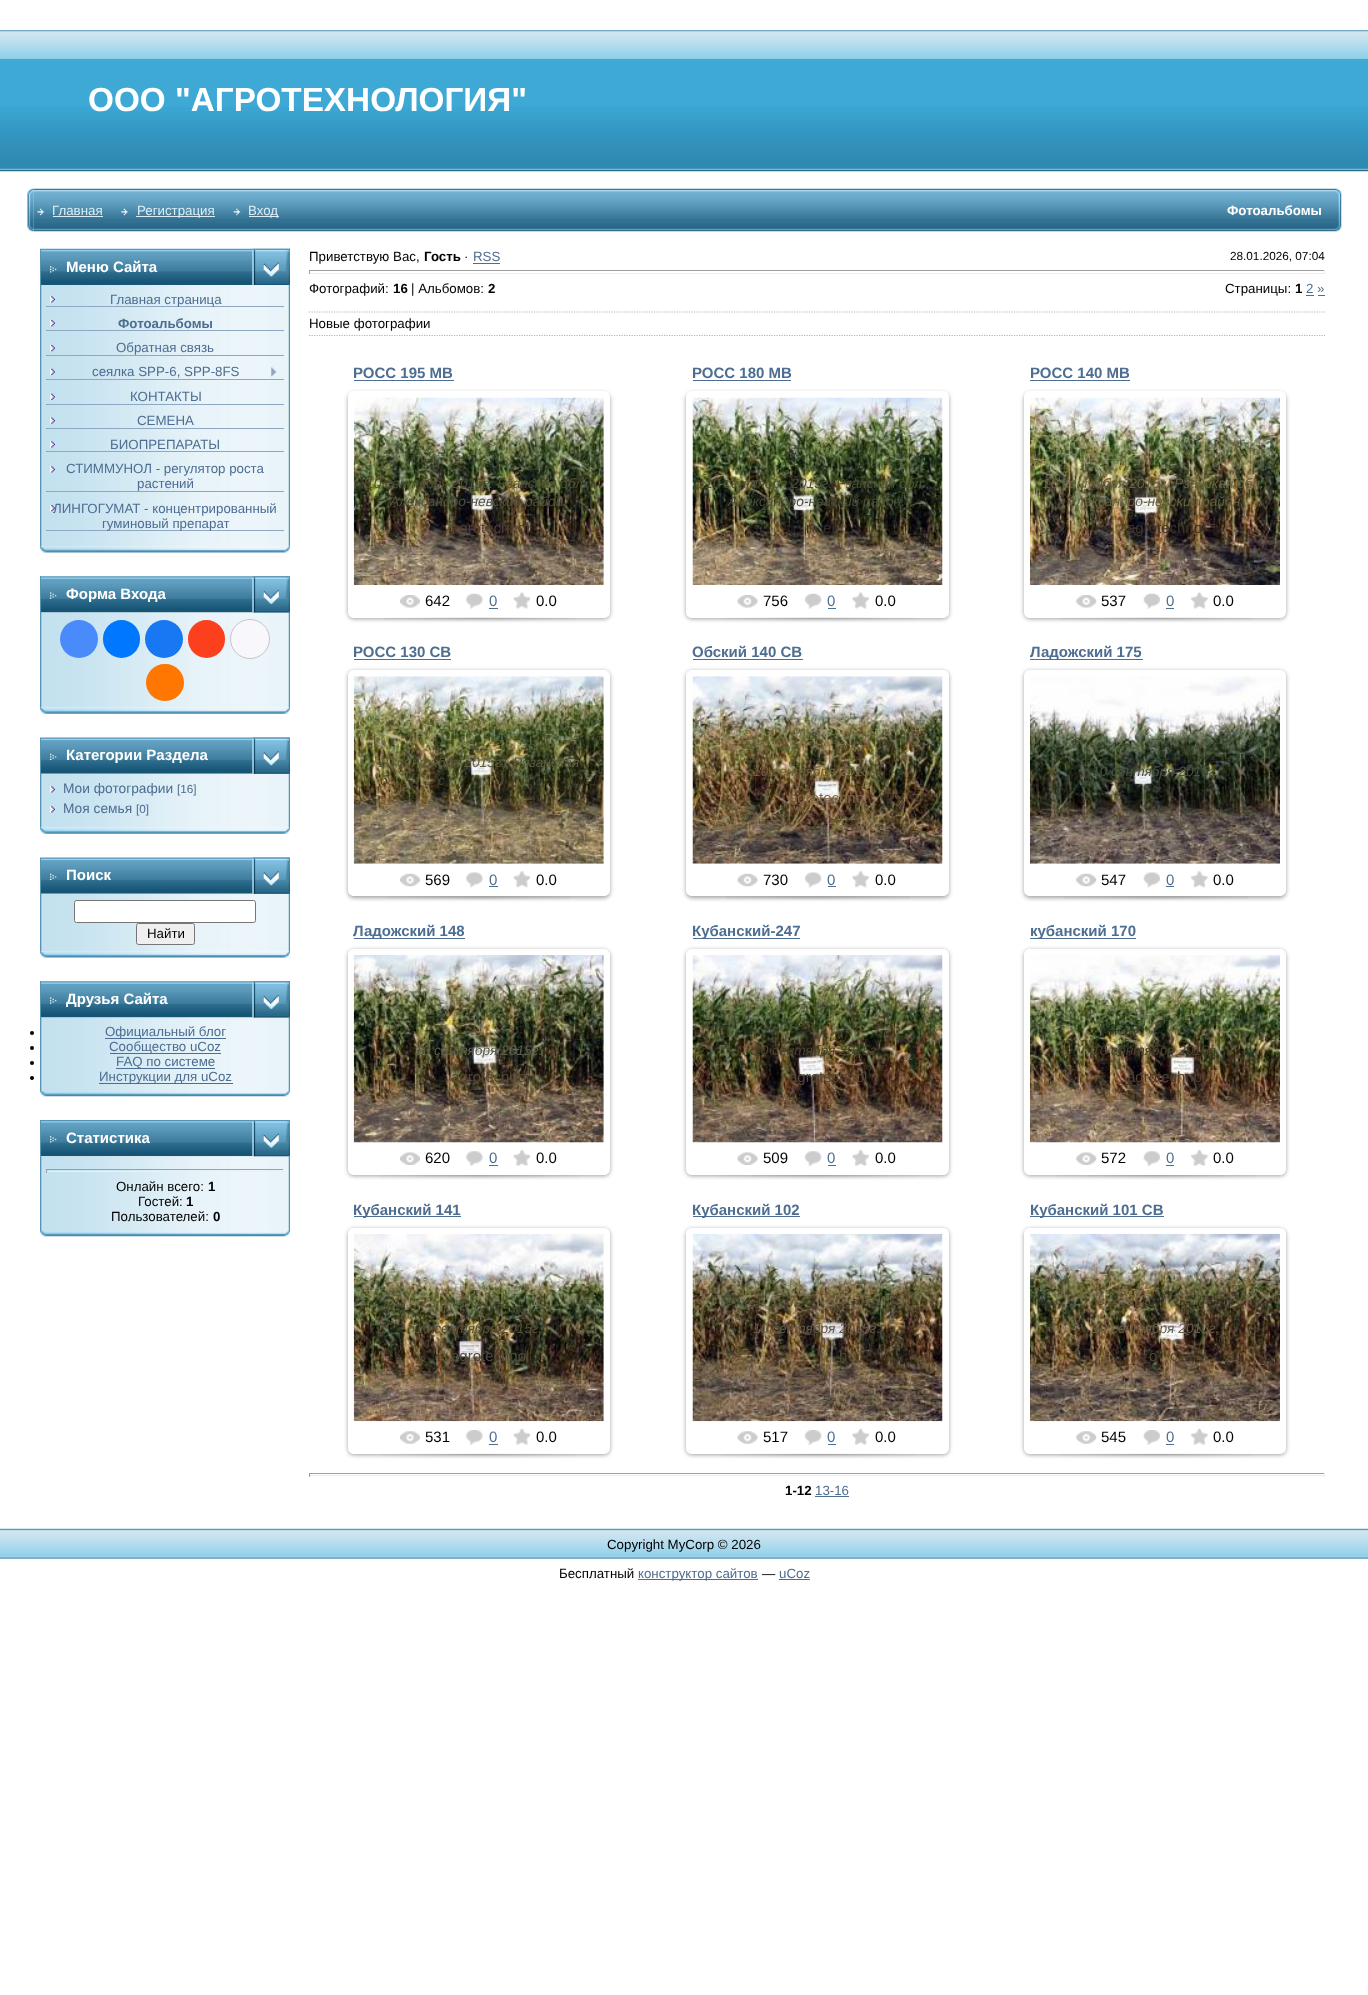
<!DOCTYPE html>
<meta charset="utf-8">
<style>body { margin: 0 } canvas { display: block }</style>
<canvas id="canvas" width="1368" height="1995"></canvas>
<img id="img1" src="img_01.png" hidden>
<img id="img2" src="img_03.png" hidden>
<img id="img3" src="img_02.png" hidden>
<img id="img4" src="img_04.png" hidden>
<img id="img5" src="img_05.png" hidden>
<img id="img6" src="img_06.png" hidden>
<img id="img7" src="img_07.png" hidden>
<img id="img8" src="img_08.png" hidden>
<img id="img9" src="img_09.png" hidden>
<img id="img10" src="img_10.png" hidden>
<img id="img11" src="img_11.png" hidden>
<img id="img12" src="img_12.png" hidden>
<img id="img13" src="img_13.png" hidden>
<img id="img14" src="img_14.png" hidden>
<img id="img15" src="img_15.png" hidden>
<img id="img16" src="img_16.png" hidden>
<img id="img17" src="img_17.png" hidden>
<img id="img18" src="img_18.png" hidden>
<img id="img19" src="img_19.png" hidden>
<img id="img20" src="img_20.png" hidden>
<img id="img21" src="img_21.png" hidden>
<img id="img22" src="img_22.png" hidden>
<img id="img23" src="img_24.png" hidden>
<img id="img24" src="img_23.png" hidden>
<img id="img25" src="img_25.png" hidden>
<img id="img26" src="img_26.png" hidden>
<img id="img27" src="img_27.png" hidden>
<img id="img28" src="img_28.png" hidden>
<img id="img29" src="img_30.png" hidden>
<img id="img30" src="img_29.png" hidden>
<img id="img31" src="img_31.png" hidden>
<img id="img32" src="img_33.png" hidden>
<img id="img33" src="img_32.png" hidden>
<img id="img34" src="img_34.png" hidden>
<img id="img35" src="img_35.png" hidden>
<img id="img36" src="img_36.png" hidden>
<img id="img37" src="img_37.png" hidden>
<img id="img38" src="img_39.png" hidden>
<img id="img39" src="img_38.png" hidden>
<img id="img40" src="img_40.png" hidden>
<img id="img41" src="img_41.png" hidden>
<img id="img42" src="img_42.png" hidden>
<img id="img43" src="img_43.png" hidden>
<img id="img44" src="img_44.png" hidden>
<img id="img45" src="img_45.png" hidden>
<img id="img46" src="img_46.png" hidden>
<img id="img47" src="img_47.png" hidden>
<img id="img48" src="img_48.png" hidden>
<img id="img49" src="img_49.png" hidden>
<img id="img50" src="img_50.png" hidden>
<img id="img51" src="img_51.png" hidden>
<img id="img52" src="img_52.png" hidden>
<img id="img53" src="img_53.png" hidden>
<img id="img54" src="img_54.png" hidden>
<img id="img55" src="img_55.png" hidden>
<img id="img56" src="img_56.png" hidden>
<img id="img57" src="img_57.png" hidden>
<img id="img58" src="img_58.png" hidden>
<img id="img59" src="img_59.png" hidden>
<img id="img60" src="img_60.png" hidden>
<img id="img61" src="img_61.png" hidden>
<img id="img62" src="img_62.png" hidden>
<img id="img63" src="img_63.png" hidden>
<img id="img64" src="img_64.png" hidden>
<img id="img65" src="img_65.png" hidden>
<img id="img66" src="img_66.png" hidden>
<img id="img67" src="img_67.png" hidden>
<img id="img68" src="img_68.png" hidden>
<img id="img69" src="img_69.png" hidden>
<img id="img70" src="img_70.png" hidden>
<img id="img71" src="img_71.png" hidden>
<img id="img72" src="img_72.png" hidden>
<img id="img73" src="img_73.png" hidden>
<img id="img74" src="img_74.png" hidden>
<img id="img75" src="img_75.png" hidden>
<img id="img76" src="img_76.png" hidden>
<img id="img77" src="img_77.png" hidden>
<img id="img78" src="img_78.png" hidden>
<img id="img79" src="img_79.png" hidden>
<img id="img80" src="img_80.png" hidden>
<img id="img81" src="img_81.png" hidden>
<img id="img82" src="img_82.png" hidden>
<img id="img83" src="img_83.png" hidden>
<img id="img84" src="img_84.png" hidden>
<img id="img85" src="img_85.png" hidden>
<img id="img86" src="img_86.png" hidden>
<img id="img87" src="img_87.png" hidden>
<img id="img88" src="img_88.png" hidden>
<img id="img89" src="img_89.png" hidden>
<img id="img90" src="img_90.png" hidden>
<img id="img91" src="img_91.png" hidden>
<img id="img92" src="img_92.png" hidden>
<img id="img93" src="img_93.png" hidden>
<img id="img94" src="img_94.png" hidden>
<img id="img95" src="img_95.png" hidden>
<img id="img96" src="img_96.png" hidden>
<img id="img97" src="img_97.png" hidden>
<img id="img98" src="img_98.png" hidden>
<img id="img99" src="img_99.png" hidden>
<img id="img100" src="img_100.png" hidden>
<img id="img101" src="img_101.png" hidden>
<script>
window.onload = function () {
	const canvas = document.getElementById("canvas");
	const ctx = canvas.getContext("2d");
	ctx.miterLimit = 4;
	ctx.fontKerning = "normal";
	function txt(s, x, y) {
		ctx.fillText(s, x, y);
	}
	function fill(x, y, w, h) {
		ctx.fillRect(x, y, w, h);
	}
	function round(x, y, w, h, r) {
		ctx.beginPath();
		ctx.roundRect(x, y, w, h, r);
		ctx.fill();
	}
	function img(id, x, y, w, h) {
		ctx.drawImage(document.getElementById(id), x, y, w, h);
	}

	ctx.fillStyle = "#FFFFFF";
	fill(0, 0, 1368, 1995);
	img("img1", 0, 30, 1368, 142);
	img("img2", 33, 188, 912, 44);
	img("img3", 27, 188, 7, 44);
	img("img4", 37, 208, 7, 8);
	ctx.fillStyle = "#DDEEF7";
	fill(53, 216, 50, 1);
	img("img5", 121, 208, 7, 8);
	fill(136, 216, 79, 1);
	img("img6", 233, 208, 8, 8);
	fill(249, 216, 30, 1);
	img("img7", 945, 188, 390, 44);
	img("img8", 1335, 188, 7, 44);
	img("img9", 40, 248, 213, 37);
	ctx.fillStyle = "#5694B5";
	fill(40, 249, 1, 36);
	img("img10", 50, 266, 7, 7);
	img("img11", 252, 248, 38, 37);
	img("img12", 252, 248, 38, 37);
	img("img13", 40, 285, 250, 262);
	img("img14", 50, 296, 5, 7);
	ctx.fillStyle = "#8EA8C4";
	fill(46, 306, 238, 1);
	img("img15", 50, 320, 5, 7);
	fill(46, 330, 238, 1);
	img("img15", 50, 345, 5, 7);
	fill(46, 355, 238, 1);
	img("img16", 50, 368, 5, 7);
	fill(46, 379, 238, 1);
	img("img17", 271, 367, 6, 10);
	img("img16", 50, 393, 5, 7);
	fill(46, 404, 238, 1);
	img("img18", 50, 417, 5, 7);
	fill(46, 428, 238, 1);
	img("img14", 50, 441, 5, 7);
	fill(46, 451, 238, 1);
	img("img14", 50, 466, 5, 7);
	fill(46, 491, 238, 1);
	img("img15", 50, 505, 5, 7);
	fill(46, 530, 238, 1);
	img("img19", 40, 546, 250, 7);
	img("img20", 41, 576, 212, 37);
	ctx.fillStyle = "#5694B5";
	fill(40, 576, 1, 37);
	img("img21", 50, 592, 7, 7);
	img("img22", 252, 576, 38, 37);
	img("img23", 40, 612, 250, 96);
	img("img24", 252, 576, 38, 37);
	ctx.fillStyle = "#498BFA";
	ctx.beginPath();
	ctx.arc(79, 639, 19, 0, Math.PI * 2);
	ctx.fill();
	ctx.fillStyle = "#0077FF";
	round(103, 620, 37, 38, 18.5);
	ctx.fillStyle = "#1877F2";
	ctx.beginPath();
	ctx.arc(164, 639, 19, 0, Math.PI * 2);
	ctx.fill();
	ctx.fillStyle = "#FC3F1D";
	round(188, 620, 37, 38, 18.5);
	ctx.fillStyle = "#F8F8FC";
	ctx.beginPath();
	ctx.arc(250, 639, 19.5, 0, Math.PI * 2);
	ctx.fill();
	ctx.strokeStyle = "#C4C4C4";
	ctx.stroke();
	ctx.fillStyle = "#FF7700";
	round(146, 664, 38, 37, 18.5);
	img("img25", 40, 707, 250, 7);
	img("img26", 40, 737, 213, 37);
	ctx.fillStyle = "#5694B5";
	fill(40, 738, 1, 36);
	img("img27", 50, 753, 7, 7);
	img("img28", 252, 737, 38, 37);
	img("img29", 40, 773, 250, 55);
	img("img30", 252, 737, 38, 37);
	img("img14", 50, 786, 5, 7);
	img("img14", 50, 806, 5, 7);
	img("img25", 40, 827, 250, 7);
	img("img26", 40, 857, 213, 37);
	fill(40, 858, 1, 36);
	img("img27", 50, 873, 7, 7);
	img("img28", 252, 857, 38, 37);
	img("img31", 40, 893, 250, 59);
	img("img30", 252, 857, 38, 37);
	ctx.fillStyle = "#FFFFFF";
	ctx.beginPath();
	ctx.roundRect(74.5, 900.5, 181, 22, 2);
	ctx.fill();
	ctx.strokeStyle = "#767676";
	ctx.stroke();
	ctx.fillStyle = "#EFEFEF";
	ctx.beginPath();
	ctx.roundRect(136.5, 923.5, 58, 21, 2);
	ctx.fill();
	ctx.stroke();
	img("img19", 40, 951, 250, 7);
	img("img20", 41, 981, 212, 37);
	ctx.fillStyle = "#5694B5";
	fill(40, 981, 1, 37);
	img("img21", 50, 997, 7, 7);
	img("img22", 252, 981, 38, 37);
	img("img32", 40, 1017, 250, 73);
	img("img33", 252, 981, 38, 37);
	ctx.fillStyle = "#000000";
	ctx.beginPath();
	ctx.arc(32, 1033, 2, 0, Math.PI * 2);
	ctx.fill();
	ctx.fillStyle = "#4D6D91";
	fill(105, 1038, 121, 1);
	ctx.fillStyle = "#000000";
	ctx.beginPath();
	ctx.arc(32, 1048, 2, 0, Math.PI * 2);
	ctx.fill();
	ctx.fillStyle = "#4D6D91";
	fill(110, 1053, 111, 1);
	ctx.fillStyle = "#000000";
	ctx.beginPath();
	ctx.arc(32, 1063, 2, 0, Math.PI * 2);
	ctx.fill();
	ctx.fillStyle = "#4D6D91";
	fill(116, 1068, 99, 1);
	ctx.fillStyle = "#000000";
	ctx.beginPath();
	ctx.arc(32, 1078, 2, 0, Math.PI * 2);
	ctx.fill();
	ctx.fillStyle = "#4D6D91";
	fill(99, 1083, 134, 1);
	img("img34", 40, 1090, 250, 7);
	img("img35", 40, 1120, 213, 37);
	ctx.fillStyle = "#5694B5";
	fill(40, 1120, 1, 36);
	img("img36", 50, 1136, 7, 7);
	img("img37", 252, 1120, 38, 37);
	img("img38", 40, 1156, 250, 74);
	img("img39", 252, 1120, 38, 37);
	ctx.fillStyle = "#9F9F9F";
	fill(46, 1169, 238, 1);
	ctx.fillStyle = "#EEEEEE";
	fill(283, 1169, 1, 4);
	fill(46, 1171, 238, 1);
	ctx.fillStyle = "#9F9F9F";
	fill(46, 1169, 1, 4);
	img("img34", 40, 1230, 250, 7);
	ctx.fillStyle = "#4D6D91";
	fill(473, 263, 27, 1);
	ctx.fillStyle = "#9F9F9F";
	fill(309, 270, 1016, 1);
	ctx.fillStyle = "#EEEEEE";
	fill(1324, 270, 1, 4);
	fill(309, 273, 1016, 1);
	ctx.fillStyle = "#9F9F9F";
	fill(309, 270, 1, 4);
	ctx.fillStyle = "#4D6D91";
	fill(1306, 295, 8, 1);
	fill(1318, 295, 7, 1);
	ctx.beginPath();
	ctx.moveTo(309, 312);
	ctx.lineTo(1325, 312);
	ctx.strokeStyle = "#A9B8C2";
	ctx.lineWidth = 1.2;
	ctx.setLineDash([1.25, 1.25]);
	ctx.stroke();
	ctx.beginPath();
	ctx.moveTo(309, 335.5);
	ctx.lineTo(1325, 335.5);
	ctx.stroke();
	fill(354, 380, 100, 1);
	ctx.save();
	ctx.beginPath();
	ctx.moveTo(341, 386);
	ctx.lineTo(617, 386);
	ctx.lineTo(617, 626);
	ctx.lineTo(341, 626);
	ctx.closePath();
	ctx.moveTo(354, 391);
	ctx.lineTo(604, 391);
	ctx.bezierCurveTo(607.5, 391, 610, 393.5, 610, 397);
	ctx.lineTo(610, 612);
	ctx.bezierCurveTo(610, 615.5, 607.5, 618, 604, 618);
	ctx.lineTo(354, 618);
	ctx.bezierCurveTo(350.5, 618, 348, 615.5, 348, 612);
	ctx.lineTo(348, 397);
	ctx.bezierCurveTo(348, 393.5, 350.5, 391, 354, 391);
	ctx.closePath();
	ctx.clip("evenodd");
	ctx.fillStyle = "rgba(0, 0, 0, 0.37)";
	ctx.filter = "blur(2px)";
	ctx.beginPath();
	ctx.roundRect(348, 393, 262, 226, 6);
	ctx.fill();
	ctx.filter = "none";
	ctx.restore();
	img("img40", 353, 397, 251, 188);
	img("img41", 400, 595, 20, 13);
	img("img42", 466, 593, 17, 16);
	fill(489, 608, 9, 1);
	img("img43", 513, 592, 17, 17);
	img("img44", 383, 617, 193, 5);
	fill(693, 380, 98, 1);
	ctx.save();
	ctx.beginPath();
	ctx.moveTo(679, 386);
	ctx.lineTo(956, 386);
	ctx.lineTo(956, 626);
	ctx.lineTo(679, 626);
	ctx.closePath();
	ctx.moveTo(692, 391);
	ctx.lineTo(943, 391);
	ctx.bezierCurveTo(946.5, 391, 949, 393.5, 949, 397);
	ctx.lineTo(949, 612);
	ctx.bezierCurveTo(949, 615.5, 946.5, 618, 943, 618);
	ctx.lineTo(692, 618);
	ctx.bezierCurveTo(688.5, 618, 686, 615.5, 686, 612);
	ctx.lineTo(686, 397);
	ctx.bezierCurveTo(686, 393.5, 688.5, 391, 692, 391);
	ctx.closePath();
	ctx.clip("evenodd");
	ctx.fillStyle = "rgba(0, 0, 0, 0.37)";
	ctx.filter = "blur(2px)";
	ctx.beginPath();
	ctx.roundRect(686, 393, 263, 226, 6);
	ctx.fill();
	ctx.filter = "none";
	ctx.restore();
	img("img45", 692, 397, 251, 188);
	img("img46", 737, 595, 21, 13);
	img("img47", 805, 593, 17, 16);
	fill(828, 608, 8, 1);
	img("img48", 852, 592, 17, 17);
	img("img49", 721, 617, 194, 5);
	fill(1030, 380, 100, 1);
	ctx.save();
	ctx.beginPath();
	ctx.moveTo(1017, 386);
	ctx.lineTo(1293, 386);
	ctx.lineTo(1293, 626);
	ctx.lineTo(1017, 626);
	ctx.closePath();
	ctx.moveTo(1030, 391);
	ctx.lineTo(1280, 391);
	ctx.bezierCurveTo(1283.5, 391, 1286, 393.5, 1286, 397);
	ctx.lineTo(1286, 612);
	ctx.bezierCurveTo(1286, 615.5, 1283.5, 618, 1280, 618);
	ctx.lineTo(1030, 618);
	ctx.bezierCurveTo(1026.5, 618, 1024, 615.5, 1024, 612);
	ctx.lineTo(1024, 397);
	ctx.bezierCurveTo(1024, 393.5, 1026.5, 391, 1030, 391);
	ctx.closePath();
	ctx.clip("evenodd");
	ctx.fillStyle = "rgba(0, 0, 0, 0.37)";
	ctx.filter = "blur(2px)";
	ctx.beginPath();
	ctx.roundRect(1024, 393, 262, 226, 6);
	ctx.fill();
	ctx.filter = "none";
	ctx.restore();
	img("img50", 1030, 397, 250, 188);
	img("img51", 1076, 595, 21, 13);
	img("img52", 1143, 593, 17, 16);
	fill(1166, 608, 8, 1);
	img("img53", 1191, 592, 17, 17);
	img("img54", 1059, 617, 193, 5);
	fill(354, 659, 97, 1);
	ctx.save();
	ctx.beginPath();
	ctx.moveTo(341, 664);
	ctx.lineTo(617, 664);
	ctx.lineTo(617, 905);
	ctx.lineTo(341, 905);
	ctx.closePath();
	ctx.moveTo(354, 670);
	ctx.lineTo(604, 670);
	ctx.bezierCurveTo(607.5, 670, 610, 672.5, 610, 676);
	ctx.lineTo(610, 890);
	ctx.bezierCurveTo(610, 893.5, 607.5, 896, 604, 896);
	ctx.lineTo(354, 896);
	ctx.bezierCurveTo(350.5, 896, 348, 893.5, 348, 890);
	ctx.lineTo(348, 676);
	ctx.bezierCurveTo(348, 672.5, 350.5, 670, 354, 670);
	ctx.closePath();
	ctx.clip("evenodd");
	ctx.fillStyle = "rgba(0, 0, 0, 0.37)";
	ctx.filter = "blur(2px)";
	ctx.beginPath();
	ctx.roundRect(348, 671, 262, 227, 6);
	ctx.fill();
	ctx.filter = "none";
	ctx.restore();
	img("img55", 353, 676, 251, 188);
	img("img56", 400, 873, 20, 14);
	img("img57", 466, 872, 17, 16);
	fill(489, 886, 9, 1);
	img("img58", 513, 871, 17, 17);
	img("img59", 387, 896, 184, 4);
	fill(693, 659, 110, 1);
	ctx.save();
	ctx.beginPath();
	ctx.moveTo(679, 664);
	ctx.lineTo(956, 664);
	ctx.lineTo(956, 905);
	ctx.lineTo(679, 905);
	ctx.closePath();
	ctx.moveTo(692, 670);
	ctx.lineTo(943, 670);
	ctx.bezierCurveTo(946.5, 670, 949, 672.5, 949, 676);
	ctx.lineTo(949, 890);
	ctx.bezierCurveTo(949, 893.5, 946.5, 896, 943, 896);
	ctx.lineTo(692, 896);
	ctx.bezierCurveTo(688.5, 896, 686, 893.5, 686, 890);
	ctx.lineTo(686, 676);
	ctx.bezierCurveTo(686, 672.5, 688.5, 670, 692, 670);
	ctx.closePath();
	ctx.clip("evenodd");
	ctx.fillStyle = "rgba(0, 0, 0, 0.37)";
	ctx.filter = "blur(2px)";
	ctx.beginPath();
	ctx.roundRect(686, 671, 263, 227, 6);
	ctx.fill();
	ctx.filter = "none";
	ctx.restore();
	img("img60", 692, 676, 251, 188);
	img("img61", 737, 873, 21, 14);
	img("img62", 805, 872, 17, 16);
	fill(828, 886, 8, 1);
	img("img63", 852, 871, 17, 17);
	img("img64", 726, 896, 184, 4);
	fill(1030, 659, 113, 1);
	ctx.save();
	ctx.beginPath();
	ctx.moveTo(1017, 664);
	ctx.lineTo(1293, 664);
	ctx.lineTo(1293, 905);
	ctx.lineTo(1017, 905);
	ctx.closePath();
	ctx.moveTo(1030, 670);
	ctx.lineTo(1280, 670);
	ctx.bezierCurveTo(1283.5, 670, 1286, 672.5, 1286, 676);
	ctx.lineTo(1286, 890);
	ctx.bezierCurveTo(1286, 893.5, 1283.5, 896, 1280, 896);
	ctx.lineTo(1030, 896);
	ctx.bezierCurveTo(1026.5, 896, 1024, 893.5, 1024, 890);
	ctx.lineTo(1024, 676);
	ctx.bezierCurveTo(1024, 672.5, 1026.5, 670, 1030, 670);
	ctx.closePath();
	ctx.clip("evenodd");
	ctx.fillStyle = "rgba(0, 0, 0, 0.37)";
	ctx.filter = "blur(2px)";
	ctx.beginPath();
	ctx.roundRect(1024, 671, 262, 227, 6);
	ctx.fill();
	ctx.filter = "none";
	ctx.restore();
	img("img65", 1030, 676, 250, 188);
	img("img66", 1076, 873, 21, 14);
	img("img67", 1143, 872, 17, 16);
	fill(1166, 886, 8, 1);
	img("img68", 1191, 871, 17, 17);
	img("img69", 1063, 896, 185, 4);
	fill(354, 938, 111, 1);
	ctx.save();
	ctx.beginPath();
	ctx.moveTo(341, 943);
	ctx.lineTo(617, 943);
	ctx.lineTo(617, 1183);
	ctx.lineTo(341, 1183);
	ctx.closePath();
	ctx.moveTo(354, 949);
	ctx.lineTo(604, 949);
	ctx.bezierCurveTo(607.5, 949, 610, 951.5, 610, 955);
	ctx.lineTo(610, 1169);
	ctx.bezierCurveTo(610, 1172.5, 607.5, 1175, 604, 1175);
	ctx.lineTo(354, 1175);
	ctx.bezierCurveTo(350.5, 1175, 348, 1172.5, 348, 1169);
	ctx.lineTo(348, 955);
	ctx.bezierCurveTo(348, 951.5, 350.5, 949, 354, 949);
	ctx.closePath();
	ctx.clip("evenodd");
	ctx.fillStyle = "rgba(0, 0, 0, 0.37)";
	ctx.filter = "blur(2px)";
	ctx.beginPath();
	ctx.roundRect(348, 950, 262, 226, 6);
	ctx.fill();
	ctx.filter = "none";
	ctx.restore();
	img("img70", 353, 955, 251, 188);
	img("img71", 400, 1152, 20, 13);
	img("img72", 466, 1151, 17, 15);
	fill(489, 1165, 9, 1);
	img("img73", 513, 1150, 17, 16);
	img("img74", 379, 1175, 200, 4);
	fill(693, 938, 107, 1);
	ctx.save();
	ctx.beginPath();
	ctx.moveTo(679, 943);
	ctx.lineTo(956, 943);
	ctx.lineTo(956, 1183);
	ctx.lineTo(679, 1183);
	ctx.closePath();
	ctx.moveTo(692, 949);
	ctx.lineTo(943, 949);
	ctx.bezierCurveTo(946.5, 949, 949, 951.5, 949, 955);
	ctx.lineTo(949, 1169);
	ctx.bezierCurveTo(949, 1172.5, 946.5, 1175, 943, 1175);
	ctx.lineTo(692, 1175);
	ctx.bezierCurveTo(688.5, 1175, 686, 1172.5, 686, 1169);
	ctx.lineTo(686, 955);
	ctx.bezierCurveTo(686, 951.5, 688.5, 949, 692, 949);
	ctx.closePath();
	ctx.clip("evenodd");
	ctx.fillStyle = "rgba(0, 0, 0, 0.37)";
	ctx.filter = "blur(2px)";
	ctx.beginPath();
	ctx.roundRect(686, 950, 263, 226, 6);
	ctx.fill();
	ctx.filter = "none";
	ctx.restore();
	img("img75", 688, 1173, 259, 1);
	img("img76", 692, 955, 251, 188);
	img("img77", 737, 1152, 21, 13);
	img("img78", 805, 1151, 17, 16);
	fill(828, 1165, 8, 1);
	img("img79", 852, 1150, 17, 16);
	img("img80", 718, 1175, 200, 4);
	fill(1030, 938, 106, 1);
	ctx.save();
	ctx.beginPath();
	ctx.moveTo(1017, 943);
	ctx.lineTo(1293, 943);
	ctx.lineTo(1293, 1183);
	ctx.lineTo(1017, 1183);
	ctx.closePath();
	ctx.moveTo(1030, 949);
	ctx.lineTo(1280, 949);
	ctx.bezierCurveTo(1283.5, 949, 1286, 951.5, 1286, 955);
	ctx.lineTo(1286, 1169);
	ctx.bezierCurveTo(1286, 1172.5, 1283.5, 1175, 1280, 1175);
	ctx.lineTo(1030, 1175);
	ctx.bezierCurveTo(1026.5, 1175, 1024, 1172.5, 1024, 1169);
	ctx.lineTo(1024, 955);
	ctx.bezierCurveTo(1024, 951.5, 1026.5, 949, 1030, 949);
	ctx.closePath();
	ctx.clip("evenodd");
	ctx.fillStyle = "rgba(0, 0, 0, 0.37)";
	ctx.filter = "blur(2px)";
	ctx.beginPath();
	ctx.roundRect(1024, 950, 262, 226, 6);
	ctx.fill();
	ctx.filter = "none";
	ctx.restore();
	img("img81", 1030, 955, 250, 188);
	img("img82", 1076, 1152, 21, 13);
	img("img83", 1143, 1151, 17, 15);
	fill(1166, 1165, 8, 1);
	img("img84", 1191, 1150, 17, 16);
	img("img85", 1056, 1175, 200, 4);
	fill(354, 1216, 107, 1);
	ctx.save();
	ctx.beginPath();
	ctx.moveTo(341, 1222);
	ctx.lineTo(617, 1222);
	ctx.lineTo(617, 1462);
	ctx.lineTo(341, 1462);
	ctx.closePath();
	ctx.moveTo(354, 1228);
	ctx.lineTo(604, 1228);
	ctx.bezierCurveTo(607.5, 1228, 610, 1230.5, 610, 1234);
	ctx.lineTo(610, 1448);
	ctx.bezierCurveTo(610, 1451.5, 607.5, 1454, 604, 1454);
	ctx.lineTo(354, 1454);
	ctx.bezierCurveTo(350.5, 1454, 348, 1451.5, 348, 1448);
	ctx.lineTo(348, 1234);
	ctx.bezierCurveTo(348, 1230.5, 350.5, 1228, 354, 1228);
	ctx.closePath();
	ctx.clip("evenodd");
	ctx.fillStyle = "rgba(0, 0, 0, 0.37)";
	ctx.filter = "blur(2px)";
	ctx.beginPath();
	ctx.roundRect(348, 1229, 262, 226, 6);
	ctx.fill();
	ctx.filter = "none";
	ctx.restore();
	img("img86", 353, 1234, 251, 188);
	img("img87", 400, 1431, 20, 13);
	img("img88", 466, 1430, 17, 15);
	fill(489, 1444, 9, 1);
	img("img89", 513, 1428, 17, 17);
	img("img90", 382, 1453, 195, 5);
	fill(693, 1216, 107, 1);
	ctx.save();
	ctx.beginPath();
	ctx.moveTo(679, 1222);
	ctx.lineTo(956, 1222);
	ctx.lineTo(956, 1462);
	ctx.lineTo(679, 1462);
	ctx.closePath();
	ctx.moveTo(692, 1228);
	ctx.lineTo(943, 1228);
	ctx.bezierCurveTo(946.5, 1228, 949, 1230.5, 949, 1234);
	ctx.lineTo(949, 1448);
	ctx.bezierCurveTo(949, 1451.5, 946.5, 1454, 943, 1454);
	ctx.lineTo(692, 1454);
	ctx.bezierCurveTo(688.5, 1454, 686, 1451.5, 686, 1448);
	ctx.lineTo(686, 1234);
	ctx.bezierCurveTo(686, 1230.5, 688.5, 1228, 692, 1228);
	ctx.closePath();
	ctx.clip("evenodd");
	ctx.fillStyle = "rgba(0, 0, 0, 0.37)";
	ctx.filter = "blur(2px)";
	ctx.beginPath();
	ctx.roundRect(686, 1229, 263, 226, 6);
	ctx.fill();
	ctx.filter = "none";
	ctx.restore();
	img("img91", 692, 1233, 251, 189);
	img("img92", 737, 1431, 21, 13);
	img("img93", 805, 1430, 17, 15);
	fill(828, 1444, 8, 1);
	img("img94", 852, 1428, 17, 17);
	img("img95", 721, 1453, 194, 5);
	fill(1030, 1216, 134, 1);
	ctx.save();
	ctx.beginPath();
	ctx.moveTo(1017, 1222);
	ctx.lineTo(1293, 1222);
	ctx.lineTo(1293, 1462);
	ctx.lineTo(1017, 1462);
	ctx.closePath();
	ctx.moveTo(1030, 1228);
	ctx.lineTo(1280, 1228);
	ctx.bezierCurveTo(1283.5, 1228, 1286, 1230.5, 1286, 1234);
	ctx.lineTo(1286, 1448);
	ctx.bezierCurveTo(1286, 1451.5, 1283.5, 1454, 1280, 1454);
	ctx.lineTo(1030, 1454);
	ctx.bezierCurveTo(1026.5, 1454, 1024, 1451.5, 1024, 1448);
	ctx.lineTo(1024, 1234);
	ctx.bezierCurveTo(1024, 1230.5, 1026.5, 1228, 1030, 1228);
	ctx.closePath();
	ctx.clip("evenodd");
	ctx.fillStyle = "rgba(0, 0, 0, 0.37)";
	ctx.filter = "blur(2px)";
	ctx.beginPath();
	ctx.roundRect(1024, 1229, 262, 226, 6);
	ctx.fill();
	ctx.filter = "none";
	ctx.restore();
	img("img96", 1030, 1233, 250, 189);
	img("img97", 1076, 1431, 21, 13);
	img("img98", 1143, 1430, 17, 15);
	fill(1166, 1444, 8, 1);
	img("img99", 1191, 1428, 17, 17);
	img("img100", 1058, 1453, 195, 5);
	ctx.fillStyle = "#9F9F9F";
	fill(309, 1473, 1016, 1);
	ctx.fillStyle = "#EEEEEE";
	fill(1324, 1473, 1, 4);
	fill(309, 1475, 1016, 1);
	ctx.fillStyle = "#9F9F9F";
	fill(309, 1473, 1, 4);
	ctx.fillStyle = "#4D6D91";
	fill(815, 1496, 34, 1);
	img("img101", 0, 1528, 1368, 31);
	fill(638, 1579, 120, 1);
	fill(779, 1579, 31, 1);
	ctx.font = "bold 33.3px Liberation Sans";
	ctx.fillStyle = "#FFFFFF";
	txt("ООО \"АГРОТЕХНОЛОГИЯ\"", 88, 111);
	ctx.font = "13.3px Liberation Sans";
	ctx.fillStyle = "#DDEEF7";
	txt("Главная", 52, 215);
	txt("Регистрация", 137, 215);
	txt("Вход", 248, 215);
	ctx.font = "bold 13.3px Liberation Sans";
	ctx.fillStyle = "#FFFFFF";
	txt("Фотоальбомы", 1227, 215);
	ctx.font = "bold 15px Liberation Sans";
	txt("Меню Сайта", 66, 272);
	ctx.font = "13.3px Liberation Sans";
	ctx.fillStyle = "#4D6D91";
	txt("Главная страница", 110, 304);
	ctx.font = "bold 13.3px Liberation Sans";
	txt("Фотоальбомы", 118, 328);
	ctx.font = "13.3px Liberation Sans";
	txt("Обратная связь", 116, 352);
	txt("сеялка SPP-6, SPP-8FS", 92, 376);
	txt("КОНТАКТЫ", 130, 401);
	txt("СЕМЕНА", 137, 425);
	txt("БИОПРЕПАРАТЫ", 110, 449);
	txt("СТИММУНОЛ - регулятор роста", 66, 473);
	txt("растений", 137, 488);
	txt("ЛИНГОГУМАТ - концентрированный", 53, 513);
	txt("гуминовый препарат", 102, 528);
	ctx.font = "bold 15px Liberation Sans";
	ctx.fillStyle = "#FFFFFF";
	txt("Форма Входа", 66, 599);
	txt("Категории Раздела", 66, 760);
	ctx.font = "13.75px Liberation Sans";
	ctx.fillStyle = "#4D6D91";
	txt("Мои фотографии", 63, 793);
	ctx.font = "11.75px Liberation Sans";
	txt("[16]", 177, 793);
	ctx.font = "13.75px Liberation Sans";
	txt("Моя семья", 63, 813);
	ctx.font = "11.75px Liberation Sans";
	txt("[0]", 136, 813);
	ctx.font = "bold 15px Liberation Sans";
	ctx.fillStyle = "#FFFFFF";
	txt("Поиск", 66, 880);
	ctx.font = "13.3px Liberation Sans";
	ctx.fillStyle = "#000000";
	txt("Найти", 147, 938);
	ctx.font = "bold 15px Liberation Sans";
	ctx.fillStyle = "#FFFFFF";
	txt("Друзья Сайта", 66, 1004);
	ctx.font = "13.3px Liberation Sans";
	ctx.fillStyle = "#4D6D91";
	txt("Официальный блог", 105, 1036);
	txt("Сообщество uCoz", 109, 1051);
	txt("FAQ по системе", 116, 1066);
	txt("Инструкции для uCoz", 99, 1081);
	ctx.font = "bold 15px Liberation Sans";
	ctx.fillStyle = "#FFFFFF";
	txt("Статистика", 66, 1143);
	ctx.font = "13.3px Liberation Sans";
	ctx.fillStyle = "#000000";
	txt("Онлайн всего:", 116, 1191);
	ctx.font = "bold 13.3px Liberation Sans";
	txt("1", 208, 1191);
	ctx.font = "13.3px Liberation Sans";
	txt("Гостей:", 138, 1206);
	ctx.font = "bold 13.3px Liberation Sans";
	txt("1", 186, 1206);
	ctx.font = "13.3px Liberation Sans";
	txt("Пользователей:", 111, 1221);
	ctx.font = "bold 13.3px Liberation Sans";
	txt("0", 213, 1221);
	ctx.font = "13.3px Liberation Sans";
	txt("Приветствую Вас,", 309, 261);
	ctx.font = "bold 13.3px Liberation Sans";
	txt("Гость", 424, 261);
	ctx.font = "13.3px Liberation Sans";
	txt("·", 464, 261);
	ctx.fillStyle = "#4D6D91";
	txt("RSS", 473, 261);
	ctx.font = "11.75px Liberation Sans";
	ctx.fillStyle = "#000000";
	txt("28.01.2026, 07:04", 1230, 260);
	ctx.font = "13.3px Liberation Sans";
	txt("Фотографий:", 309, 293);
	ctx.font = "bold 13.3px Liberation Sans";
	txt("16", 393, 293);
	ctx.font = "13.3px Liberation Sans";
	txt("| Альбомов:", 411, 293);
	ctx.font = "bold 13.3px Liberation Sans";
	txt("2", 488, 293);
	ctx.font = "13.3px Liberation Sans";
	txt("Страницы:", 1225, 293);
	ctx.font = "bold 13.3px Liberation Sans";
	txt("1", 1295, 293);
	ctx.font = "13.3px Liberation Sans";
	ctx.fillStyle = "#4D6D91";
	txt("2 »", 1306, 293);
	ctx.fillStyle = "#000000";
	txt("Новые фотографии", 309, 328);
	ctx.font = "bold 15px Liberation Sans";
	ctx.fillStyle = "#4D6D91";
	txt("РОСС 195 МВ", 353, 378);
	ctx.font = "italic 13.75px Liberation Sans";
	ctx.fillStyle = "#4C5030";
	txt("10 сентября 2015г. Рзанская обл.,", 366, 488);
	ctx.fillStyle = "#51503F";
	txt("Александро-невский район.", 390, 506);
	ctx.font = "15px Liberation Sans";
	ctx.fillStyle = "#4E3E31";
	txt("agrotechnol", 451, 533);
	ctx.fillStyle = "#000000";
	txt("642", 425, 606);
	ctx.fillStyle = "#4D6D91";
	txt("0", 489, 606);
	ctx.fillStyle = "#000000";
	txt("0.0", 536, 606);
	ctx.font = "bold 15px Liberation Sans";
	ctx.fillStyle = "#4D6D91";
	txt("РОСС 180 МВ", 692, 378);
	ctx.fillStyle = "#495A34";
	txt(".", 796, 461);
	ctx.font = "italic 13.75px Liberation Sans";
	ctx.fillStyle = "#4C5030";
	txt("10 сентября 2015г. Рзанская обл.,", 705, 488);
	ctx.fillStyle = "#484C36";
	txt("Александро-невский район.", 728, 506);
	ctx.font = "15px Liberation Sans";
	ctx.fillStyle = "#373026";
	txt("r", 806, 533);
	txt("e", 823, 533);
	ctx.fillStyle = "#000000";
	txt("756", 763, 606);
	ctx.fillStyle = "#4D6D91";
	txt("0", 827, 606);
	ctx.fillStyle = "#000000";
	txt("0.0", 875, 606);
	ctx.font = "bold 15px Liberation Sans";
	ctx.fillStyle = "#4D6D91";
	txt("РОСС 140 МВ", 1030, 378);
	ctx.font = "italic 13.75px Liberation Sans";
	ctx.fillStyle = "#676140";
	txt("10 сентября 2015г. Рзанская обл.,", 1043, 488);
	txt("Александро-невский район.", 1067, 506);
	ctx.font = "15px Liberation Sans";
	ctx.fillStyle = "#403227";
	txt("agrotechnol", 1127, 533);
	ctx.fillStyle = "#000000";
	txt("537", 1101, 606);
	ctx.fillStyle = "#4D6D91";
	txt("0", 1166, 606);
	ctx.fillStyle = "#000000";
	txt("0.0", 1213, 606);
	ctx.font = "bold 15px Liberation Sans";
	ctx.fillStyle = "#4D6D91";
	txt("РОСС 130 СВ", 353, 657);
	ctx.font = "italic 13.75px Liberation Sans";
	ctx.fillStyle = "#5C5C3C";
	txt("10 сентября 2015г., Рязанская", 378, 767);
	ctx.fillStyle = "#4A462A";
	txt("б", 380, 785);
	txt("с", 438, 785);
	ctx.font = "15px Liberation Sans";
	ctx.fillStyle = "#000000";
	txt("569", 425, 885);
	ctx.fillStyle = "#4D6D91";
	txt("0", 489, 885);
	ctx.fillStyle = "#000000";
	txt("0.0", 536, 885);
	ctx.font = "bold 15px Liberation Sans";
	ctx.fillStyle = "#4D6D91";
	txt("Обский 140 СВ", 692, 657);
	ctx.font = "italic 13.75px Liberation Sans";
	ctx.fillStyle = "#6E5F3B";
	txt("10 сентября 2015г.", 753, 776);
	ctx.font = "15px Liberation Sans";
	ctx.fillStyle = "#7E674C";
	txt("agrotechnol", 789, 803);
	ctx.fillStyle = "#000000";
	txt("730", 763, 885);
	ctx.fillStyle = "#4D6D91";
	txt("0", 827, 885);
	ctx.fillStyle = "#000000";
	txt("0.0", 875, 885);
	ctx.font = "bold 15px Liberation Sans";
	ctx.fillStyle = "#4D6D91";
	txt("Ладожский 175", 1030, 657);
	ctx.font = "italic 13.75px Liberation Sans";
	ctx.fillStyle = "#4A513F";
	txt("10 сентября 2015г.", 1092, 776);
	ctx.font = "15px Liberation Sans";
	ctx.fillStyle = "#000000";
	txt("547", 1101, 885);
	ctx.fillStyle = "#4D6D91";
	txt("0", 1166, 885);
	ctx.fillStyle = "#000000";
	txt("0.0", 1213, 885);
	ctx.font = "bold 15px Liberation Sans";
	ctx.fillStyle = "#4D6D91";
	txt("Ладожский 148", 353, 936);
	ctx.font = "italic 13.75px Liberation Sans";
	ctx.fillStyle = "#5D5E4C";
	txt("10 сентября 2015г.", 415, 1055);
	ctx.font = "15px Liberation Sans";
	ctx.fillStyle = "#544732";
	txt("agrotechnol", 451, 1082);
	ctx.fillStyle = "#000000";
	txt("620", 425, 1163);
	ctx.fillStyle = "#4D6D91";
	txt("0", 489, 1163);
	ctx.fillStyle = "#000000";
	txt("0.0", 536, 1163);
	ctx.font = "bold 15px Liberation Sans";
	ctx.fillStyle = "#4D6D91";
	txt("Кубанский-247", 692, 936);
	ctx.font = "italic 13.75px Liberation Sans";
	ctx.fillStyle = "#4A462A";
	txt("10 сентября 2015г.", 753, 1055);
	ctx.font = "15px Liberation Sans";
	ctx.fillStyle = "#544732";
	txt("agrotechnol", 789, 1082);
	ctx.fillStyle = "#000000";
	txt("509", 763, 1163);
	ctx.fillStyle = "#4D6D91";
	txt("0", 827, 1163);
	ctx.fillStyle = "#000000";
	txt("0.0", 875, 1163);
	ctx.font = "bold 15px Liberation Sans";
	ctx.fillStyle = "#4D6D91";
	txt("кубанский 170", 1030, 936);
	ctx.font = "italic 13.75px Liberation Sans";
	ctx.fillStyle = "#48402C";
	txt("10 сентября 2015г.", 1092, 1055);
	ctx.font = "15px Liberation Sans";
	ctx.fillStyle = "#4E3E31";
	txt("agrotechnol", 1127, 1082);
	ctx.fillStyle = "#000000";
	txt("572", 1101, 1163);
	ctx.fillStyle = "#4D6D91";
	txt("0", 1166, 1163);
	ctx.fillStyle = "#000000";
	txt("0.0", 1213, 1163);
	ctx.font = "bold 15px Liberation Sans";
	ctx.fillStyle = "#4D6D91";
	txt("Кубанский 141", 353, 1215);
	ctx.font = "italic 13.75px Liberation Sans";
	ctx.fillStyle = "#574F34";
	txt("10 сентября 2015г.", 415, 1333);
	ctx.font = "15px Liberation Sans";
	ctx.fillStyle = "#504A3D";
	txt("agrotechnol", 451, 1361);
	ctx.fillStyle = "#000000";
	txt("531", 425, 1442);
	ctx.fillStyle = "#4D6D91";
	txt("0", 489, 1442);
	ctx.fillStyle = "#000000";
	txt("0.0", 536, 1442);
	ctx.font = "bold 15px Liberation Sans";
	ctx.fillStyle = "#4D6D91";
	txt("Кубанский 102", 692, 1215);
	ctx.fillStyle = "#665A3B";
	txt("7", 788, 1306);
	ctx.font = "italic 13.75px Liberation Sans";
	ctx.fillStyle = "#655746";
	txt("10 сентября 2015г.", 753, 1333);
	ctx.font = "15px Liberation Sans";
	ctx.fillStyle = "#544732";
	txt("h", 839, 1361);
	ctx.fillStyle = "#000000";
	txt("517", 763, 1442);
	ctx.fillStyle = "#4D6D91";
	txt("0", 827, 1442);
	ctx.fillStyle = "#000000";
	txt("0.0", 875, 1442);
	ctx.font = "bold 15px Liberation Sans";
	ctx.fillStyle = "#4D6D91";
	txt("Кубанский 101 СВ", 1030, 1215);
	ctx.font = "italic 13.75px Liberation Sans";
	ctx.fillStyle = "#695D4A";
	txt("10 сентября 2015г.", 1092, 1333);
	ctx.font = "15px Liberation Sans";
	ctx.fillStyle = "#544732";
	txt("o", 1149, 1361);
	txt("c", 1170, 1361);
	ctx.fillStyle = "#000000";
	txt("545", 1101, 1442);
	ctx.fillStyle = "#4D6D91";
	txt("0", 1166, 1442);
	ctx.fillStyle = "#000000";
	txt("0.0", 1213, 1442);
	ctx.font = "bold 13.3px Liberation Sans";
	txt("1-12", 785, 1495);
	ctx.font = "13.3px Liberation Sans";
	ctx.fillStyle = "#4D6D91";
	txt("13-16", 815, 1495);
	ctx.fillStyle = "#000000";
	txt("Copyright MyCorp © 2026", 607, 1549);
	txt("Бесплатный", 559, 1578);
	ctx.fillStyle = "#4D6D91";
	txt("конструктор сайтов", 638, 1578);
	ctx.fillStyle = "#000000";
	txt("—", 762, 1578);
	ctx.fillStyle = "#4D6D91";
	txt("uCoz", 779, 1578);
};
</script>
